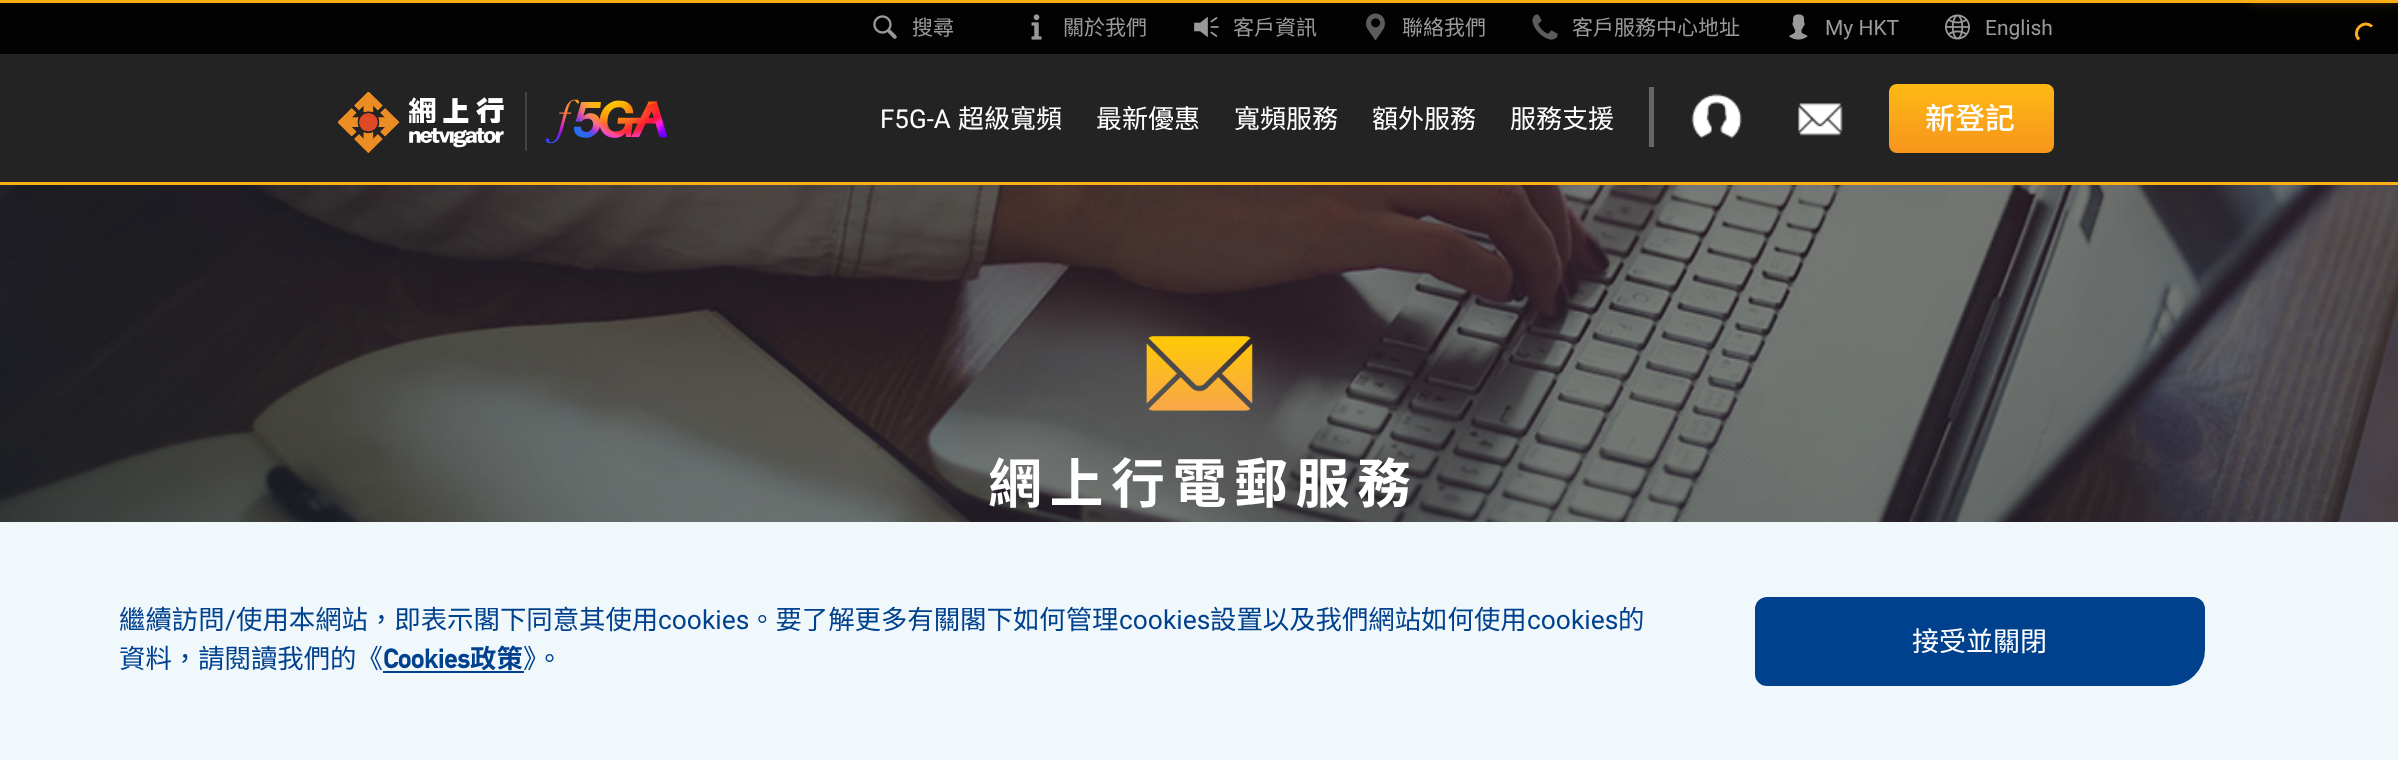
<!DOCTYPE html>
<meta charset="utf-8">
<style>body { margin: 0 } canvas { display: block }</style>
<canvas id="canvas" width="2398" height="760"></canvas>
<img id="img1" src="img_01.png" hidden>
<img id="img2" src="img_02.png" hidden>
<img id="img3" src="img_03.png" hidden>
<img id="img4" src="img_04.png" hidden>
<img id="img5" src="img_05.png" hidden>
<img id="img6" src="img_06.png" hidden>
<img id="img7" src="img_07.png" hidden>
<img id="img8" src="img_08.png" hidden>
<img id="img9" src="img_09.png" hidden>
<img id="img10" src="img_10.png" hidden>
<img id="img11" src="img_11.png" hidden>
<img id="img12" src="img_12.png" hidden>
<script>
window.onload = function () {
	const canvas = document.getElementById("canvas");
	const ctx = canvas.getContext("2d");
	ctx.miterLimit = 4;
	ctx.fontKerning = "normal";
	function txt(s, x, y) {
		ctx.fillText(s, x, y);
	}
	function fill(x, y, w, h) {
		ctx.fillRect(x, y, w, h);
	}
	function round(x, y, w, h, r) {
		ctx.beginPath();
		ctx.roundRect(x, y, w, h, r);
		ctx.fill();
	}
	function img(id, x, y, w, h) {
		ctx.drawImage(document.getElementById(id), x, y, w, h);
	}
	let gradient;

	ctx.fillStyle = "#FFFFFF";
	fill(0, 0, 2398, 760);
	ctx.fillStyle = "#FCAF17";
	fill(0, 0, 2398, 3);
	ctx.fillStyle = "#020202";
	fill(0, 3, 2398, 51);
	ctx.fillStyle = "#FCAF17";
	ctx.filter = "blur(4px)";
	ctx.beginPath();
	ctx.rect(2249, -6, 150, 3);
	ctx.fill();
	ctx.filter = "none";
	ctx.filter = "blur(7.5px)";
	ctx.beginPath();
	ctx.rect(2249, -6, 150, 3);
	ctx.fill();
	ctx.filter = "none";
	ctx.beginPath();
	ctx.moveTo(2359, 39.5);
	ctx.bezierCurveTo(2351, 31, 2363.5, 18.5, 2372, 26.5);
	ctx.strokeStyle = "#FCAF17";
	ctx.lineWidth = 3;
	ctx.stroke();
	ctx.fillStyle = "#232323";
	fill(0, 54, 2398, 128);
	img("img1", 338, 92, 330, 61);
	img("img2", 873, 15, 24, 24);
	img("img3", 1031, 14, 11, 26);
	img("img4", 1194, 16, 25, 22);
	img("img5", 1366, 13, 19, 28);
	img("img6", 1532, 14, 26, 26);
	img("img7", 1789, 14, 19, 26);
	img("img8", 1945, 14, 25, 26);
	ctx.fillStyle = "#666666";
	fill(1649, 87, 5, 60);
	img("img9", 1691, 94, 51, 45);
	img("img10", 1798, 103, 45, 33);
	gradient = ctx.createLinearGradient(1971, 84, 1971, 153);
	gradient.addColorStop(0, "#FDB913");
	gradient.addColorStop(1, "#F7951D");
	ctx.fillStyle = gradient;
	round(1889, 84, 165, 69, 8);
	ctx.fillStyle = "#FCAF17";
	fill(0, 182, 2398, 3);
	img("img11", 0, 185, 2398, 337);
	img("img12", 1146, 336, 107, 75);
	ctx.fillStyle = "#F1F8FC";
	fill(0, 522, 2398, 238);
	ctx.fillStyle = "#00418E";
	fill(383, 671, 141, 2);
	ctx.beginPath();
	ctx.roundRect(1755, 597, 450, 89, [12, 12, 36, 12]);
	ctx.fill();
	ctx.font = "21px Noto Sans CJK TC";
	ctx.fillStyle = "#9A9A9A";
	txt("搜尋", 912, 35);
	txt("關於我們", 1063, 35);
	txt("客戶資訊", 1233, 35);
	txt("聯絡我們", 1402, 35);
	txt("客戶服務中心地址", 1572, 35);
	ctx.font = "21px Roboto";
	txt("My HKT", 1825, 35);
	txt("English", 1985, 35);
	ctx.font = "26px Roboto";
	ctx.fillStyle = "#FFFFFF";
	txt("F5G-A", 880, 128);
	ctx.font = "26px Noto Sans CJK TC";
	txt("超級寬頻", 958, 128);
	txt("最新優惠", 1096, 128);
	txt("寬頻服務", 1234, 128);
	txt("額外服務", 1372, 128);
	txt("服務支援", 1510, 128);
	ctx.font = "500 30px Noto Sans TC";
	txt("新登記", 1925, 129);
	ctx.letterSpacing = "7.5px";
	ctx.font = "bold 54px Noto Sans TC";
	txt("網上行電郵服務", 988, 503);
	ctx.letterSpacing = "0px";
	ctx.font = "26.4px Noto Sans CJK TC";
	ctx.fillStyle = "#00418E";
	txt("繼續訪問", 119, 629);
	ctx.font = "26.4px Roboto";
	txt("/", 225, 629);
	ctx.font = "26.4px Noto Sans CJK TC";
	txt("使用本網站，即表示閣下同意其使用", 236, 629);
	ctx.font = "26.4px Roboto";
	txt("cookies", 658, 629);
	ctx.font = "26.4px Noto Sans CJK TC";
	txt("。要了解更多有關閣下如何管理", 749, 629);
	ctx.font = "26.4px Roboto";
	txt("cookies", 1119, 629);
	ctx.font = "26.4px Noto Sans CJK TC";
	txt("設置以及我們網站如何使用", 1210, 629);
	ctx.font = "26.4px Roboto";
	txt("cookies", 1527, 629);
	ctx.font = "26.4px Noto Sans CJK TC";
	txt("的", 1618, 629);
	txt("資料，請閱讀我們的《", 119, 668);
	ctx.font = "bold 26.4px 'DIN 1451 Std'";
	txt("Cookies", 383, 668);
	ctx.font = "bold 26.4px Noto Sans TC";
	txt("政策", 470, 668);
	ctx.font = "26.4px Noto Sans CJK TC";
	txt("》。", 523, 668);
	ctx.font = "27px Noto Sans CJK TC";
	ctx.fillStyle = "#FFFFFF";
	txt("接受並關閉", 1912, 651);
};
</script>
